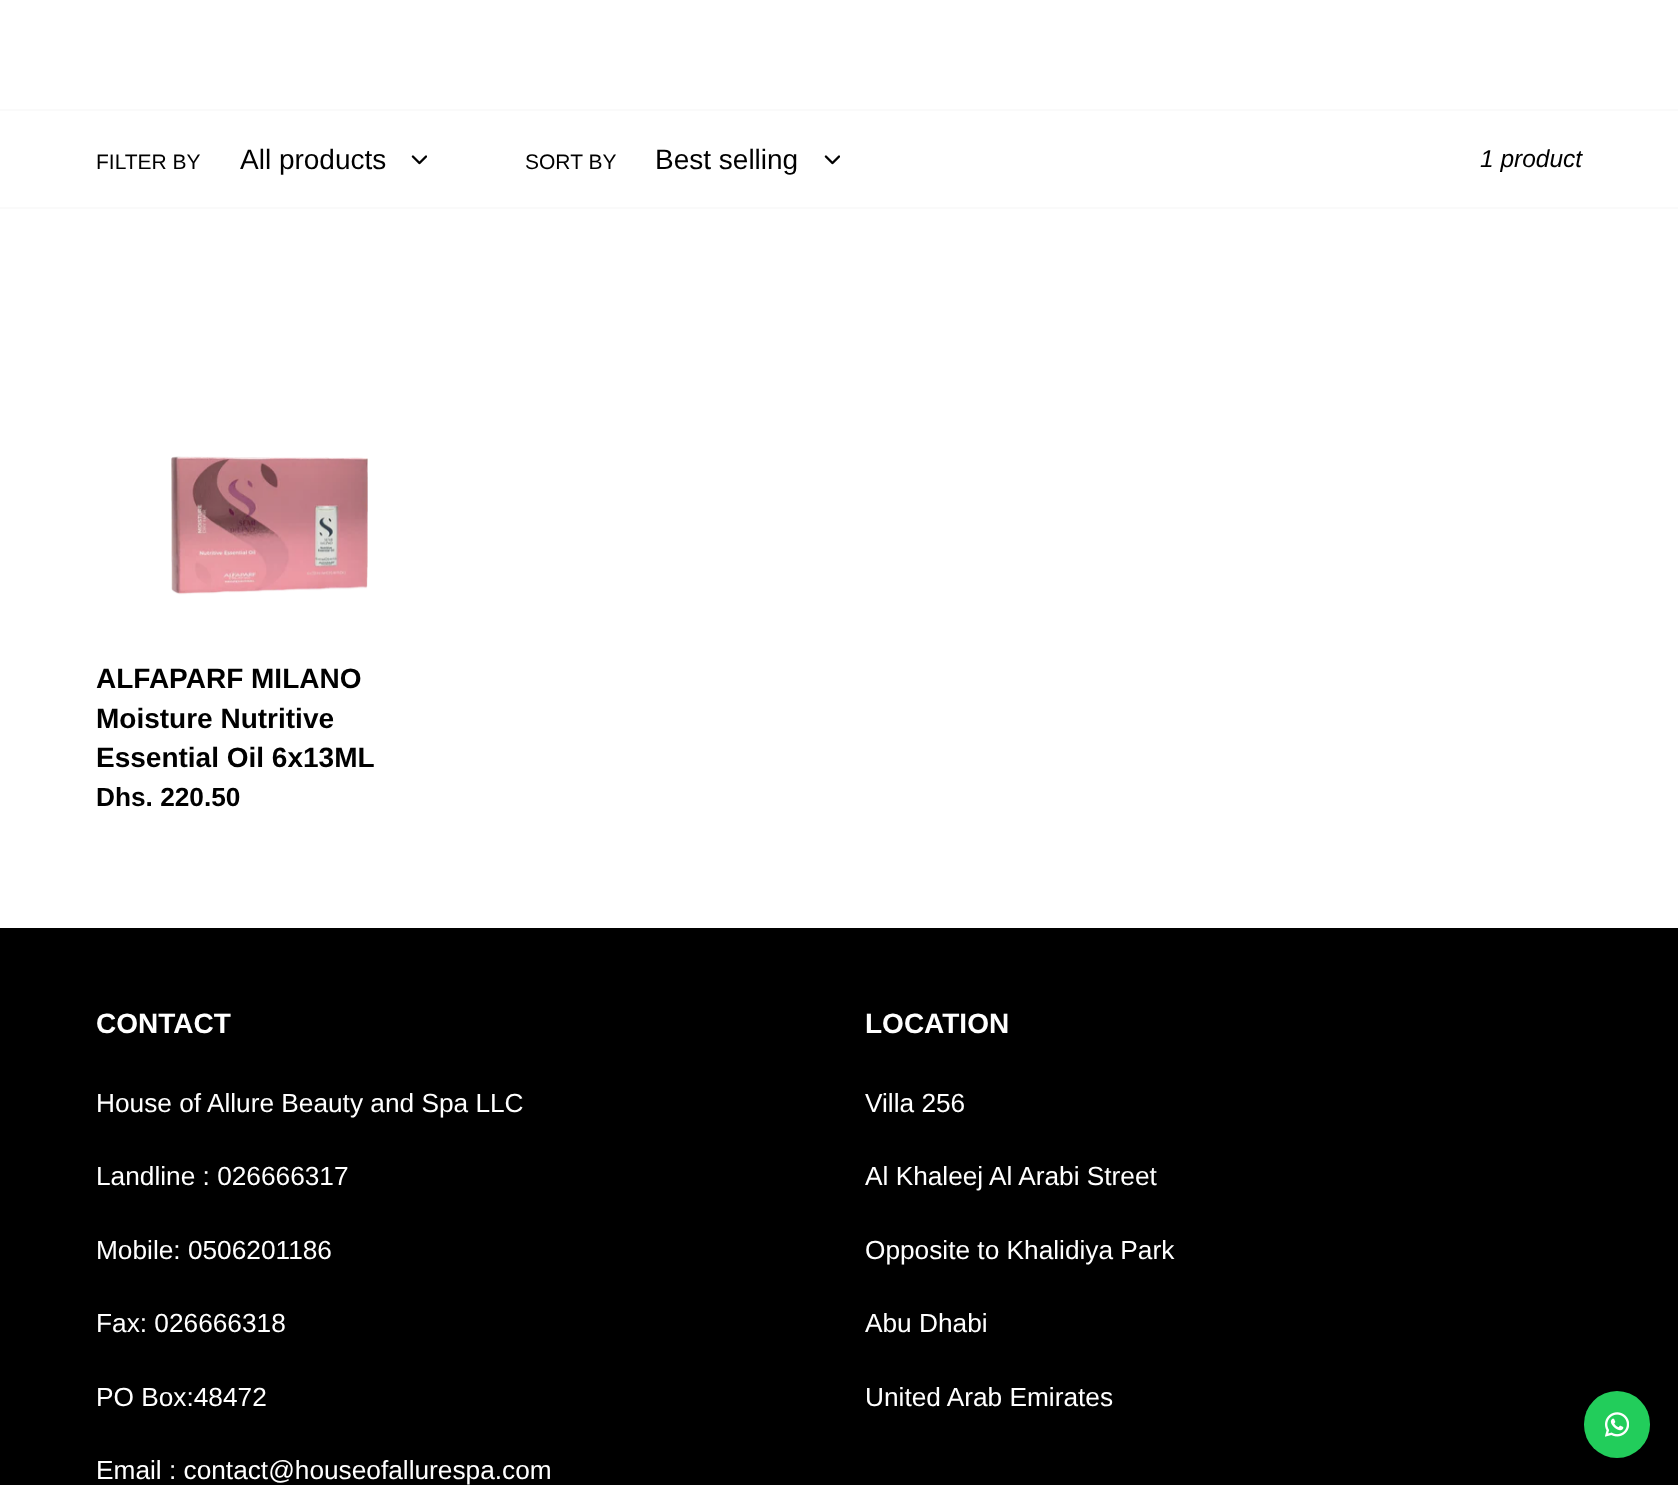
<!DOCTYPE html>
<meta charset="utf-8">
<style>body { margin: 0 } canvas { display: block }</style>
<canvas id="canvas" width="1678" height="1485"></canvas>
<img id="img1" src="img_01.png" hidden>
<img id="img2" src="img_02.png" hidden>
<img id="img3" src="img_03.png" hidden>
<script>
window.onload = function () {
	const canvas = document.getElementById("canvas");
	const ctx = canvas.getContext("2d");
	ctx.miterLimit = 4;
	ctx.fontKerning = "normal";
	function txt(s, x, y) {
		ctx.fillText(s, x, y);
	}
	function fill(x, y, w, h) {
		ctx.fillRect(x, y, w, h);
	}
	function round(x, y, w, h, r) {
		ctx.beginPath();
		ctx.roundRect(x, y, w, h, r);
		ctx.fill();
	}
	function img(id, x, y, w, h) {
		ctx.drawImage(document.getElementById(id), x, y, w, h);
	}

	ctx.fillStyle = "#FFFFFF";
	fill(0, 0, 1678, 1485);
	ctx.fillStyle = "#FAFAFA";
	fill(0, 109, 1678, 2);
	fill(0, 207, 1678, 2);
	img("img1", 411, 155, 16, 10);
	img("img1", 824, 155, 16, 10);
	img("img2", 171, 456, 197, 139);
	ctx.fillStyle = "#000000";
	fill(0, 928, 1678, 557);
	ctx.fillStyle = "#22CD5B";
	round(1584, 1391, 66, 67, 33);
	img("img3", 1605, 1412, 24, 25);
	ctx.font = "21px Liberation Sans";
	ctx.fillStyle = "#000000";
	txt("FILTER BY", 96, 169);
	ctx.font = "28px Liberation Sans";
	txt("All products", 240, 169);
	ctx.font = "21px Liberation Sans";
	txt("SORT BY", 525, 169);
	ctx.font = "28px Liberation Sans";
	txt("Best selling", 655, 169);
	ctx.font = "italic 24.5px Liberation Sans";
	txt("1 product", 1480, 167);
	ctx.font = "bold 28px Liberation Sans";
	txt("ALFAPARF MILANO", 96, 688);
	txt("Moisture Nutritive", 96, 728);
	txt("Essential Oil 6x13ML", 96, 767);
	ctx.font = "bold 26.25px Liberation Sans";
	txt("Dhs. 220.50", 96, 806);
	ctx.font = "bold 28px Liberation Sans";
	ctx.fillStyle = "#FFFFFF";
	txt("CONTACT", 96, 1033);
	ctx.font = "26.25px Liberation Sans";
	txt("House of Allure Beauty and Spa LLC", 96, 1112);
	txt("Landline : 026666317", 96, 1185);
	txt("Mobile: 0506201186", 96, 1259);
	txt("Fax: 026666318", 96, 1332);
	txt("PO Box:48472", 96, 1406);
	txt("Email : contact@houseofallurespa.com", 96, 1479);
	ctx.font = "bold 28px Liberation Sans";
	txt("LOCATION", 865, 1033);
	ctx.font = "26.25px Liberation Sans";
	txt("Villa 256", 865, 1112);
	txt("Al Khaleej Al Arabi Street", 865, 1185);
	txt("Opposite to Khalidiya Park", 865, 1259);
	txt("Abu Dhabi", 865, 1332);
	txt("United Arab Emirates", 865, 1406);
};
</script>
